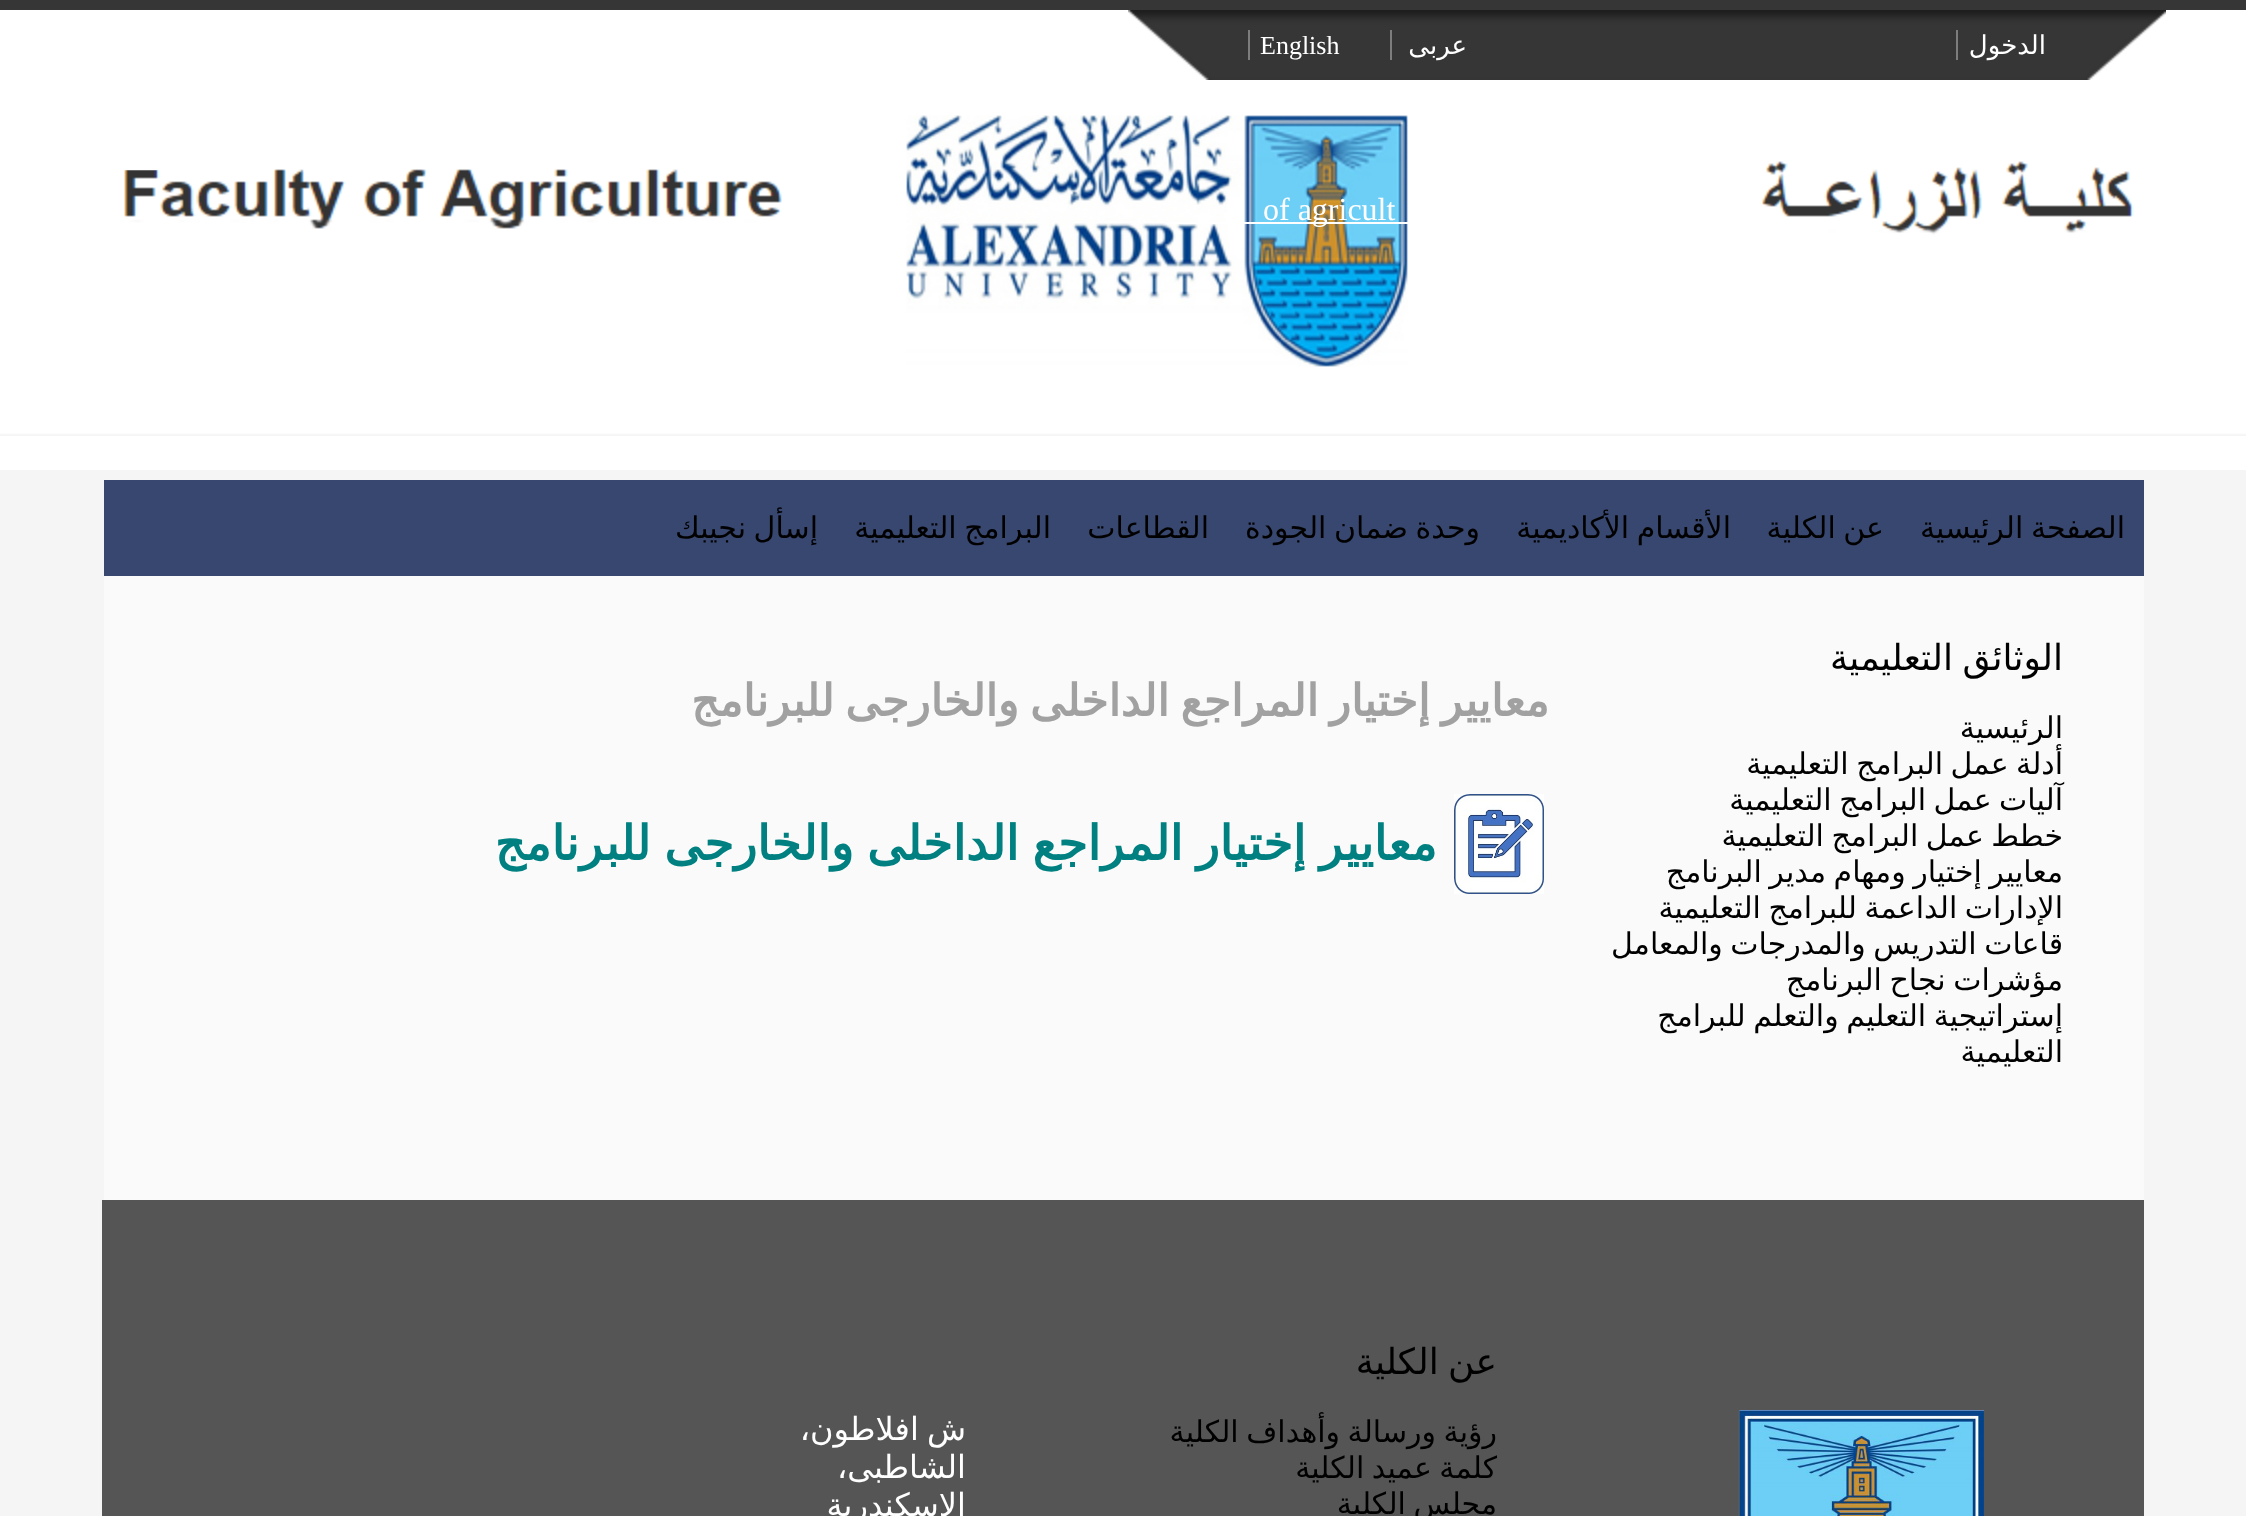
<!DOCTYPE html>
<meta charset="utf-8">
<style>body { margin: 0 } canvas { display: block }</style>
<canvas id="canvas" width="2246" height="1516"></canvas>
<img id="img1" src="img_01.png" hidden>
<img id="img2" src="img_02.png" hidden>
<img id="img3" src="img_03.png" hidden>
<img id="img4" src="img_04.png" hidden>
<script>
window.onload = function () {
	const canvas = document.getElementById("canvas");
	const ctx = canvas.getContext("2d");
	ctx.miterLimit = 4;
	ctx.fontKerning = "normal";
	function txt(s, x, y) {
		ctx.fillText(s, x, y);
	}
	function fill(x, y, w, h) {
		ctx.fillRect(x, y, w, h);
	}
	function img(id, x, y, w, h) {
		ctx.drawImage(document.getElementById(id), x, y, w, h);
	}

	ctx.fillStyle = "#F5F5F5";
	fill(0, 0, 2246, 1516);
	ctx.fillStyle = "#FFFFFF";
	fill(0, 10, 2246, 460);
	img("img1", 0, 115, 2246, 321);
	ctx.fillStyle = "#363636";
	fill(0, 0, 2246, 10);
	img("img2", 1128, 10, 1038, 70);
	ctx.fillStyle = "#7D7D7D";
	fill(1956, 30, 2, 30);
	fill(1390, 30, 2, 30);
	fill(1248, 30, 2, 30);
	ctx.fillStyle = "#FFFFFF";
	fill(124, 169, 36, 1);
	fill(1166, 222, 242, 2);
	ctx.fillStyle = "#FAFAFA";
	fill(104, 576, 2040, 624);
	ctx.fillStyle = "#38476F";
	fill(104, 480, 2040, 96);
	img("img3", 1454, 794, 90, 100);
	ctx.fillStyle = "#555555";
	fill(102, 1200, 2042, 316);
	img("img4", 1738, 1410, 246, 106);
	ctx.direction = "rtl";
	ctx.font = "26px DejaVu Sans";
	ctx.fillStyle = "#FFFFFF";
	txt("الدخول", 2046, 54);
	txt("عربى", 1467, 54);
	ctx.direction = "ltr";
	ctx.font = "26px Liberation Serif";
	txt("English", 1260, 54);
	ctx.font = "32px Liberation Serif";
	txt("of agricult", 1263, 220);
	ctx.wordSpacing = "-2px";
	ctx.direction = "rtl";
	ctx.font = "30px DejaVu Sans";
	ctx.fillStyle = "#000000";
	txt("الصفحة الرئيسية", 2125, 538);
	txt("عن الكلية", 1884, 538);
	txt("الأقسام الأكاديمية", 1731, 538);
	txt("وحدة ضمان الجودة", 1480, 538);
	ctx.wordSpacing = "0px";
	txt("القطاعات", 1209, 538);
	ctx.wordSpacing = "-2px";
	txt("البرامج التعليمية", 1051, 538);
	txt("إسأل نجيبك", 818, 538);
	ctx.font = "36px DejaVu Sans";
	txt("الوثائق التعليمية", 2063, 670);
	ctx.wordSpacing = "0px";
	ctx.font = "30px DejaVu Sans";
	txt("الرئيسية", 2063, 738);
	ctx.wordSpacing = "-2px";
	txt("أدلة عمل البرامج التعليمية", 2063, 774);
	txt("آليات عمل البرامج التعليمية", 2063, 810);
	txt("خطط عمل البرامج التعليمية", 2063, 846);
	txt("معايير إختيار ومهام مدير البرنامج", 2063, 882);
	txt("الإدارات الداعمة للبرامج التعليمية", 2063, 918);
	txt("قاعات التدريس والمدرجات والمعامل", 2063, 954);
	txt("مؤشرات نجاح البرنامج", 2063, 990);
	txt("إستراتيجية التعليم والتعلم للبرامج", 2063, 1026);
	ctx.wordSpacing = "0px";
	txt("التعليمية", 2063, 1062);
	ctx.wordSpacing = "-3px";
	ctx.font = "bold 44px DejaVu Sans";
	ctx.fillStyle = "#A1A1A1";
	txt("معايير إختيار المراجع الداخلى والخارجى للبرنامج", 1549, 716);
	ctx.wordSpacing = "-2px";
	ctx.font = "bold 48px DejaVu Sans";
	ctx.fillStyle = "#008080";
	txt("معايير إختيار المراجع الداخلى والخارجى للبرنامج", 1437, 860);
	ctx.font = "36px DejaVu Sans";
	ctx.fillStyle = "#000000";
	txt("عن الكلية", 1497, 1374);
	ctx.font = "30px DejaVu Sans";
	txt("رؤية ورسالة وأهداف الكلية", 1497, 1442);
	txt("كلمة عميد الكلية", 1497, 1478);
	txt("مجلس الكلية", 1497, 1514);
	ctx.font = "32px DejaVu Sans";
	ctx.fillStyle = "#FFFFFF";
	txt("ش افلاطون،", 966, 1440);
	ctx.wordSpacing = "0px";
	txt("الشاطبى،", 966, 1478);
	txt("الاسكندرية", 966, 1516);
};
</script>
